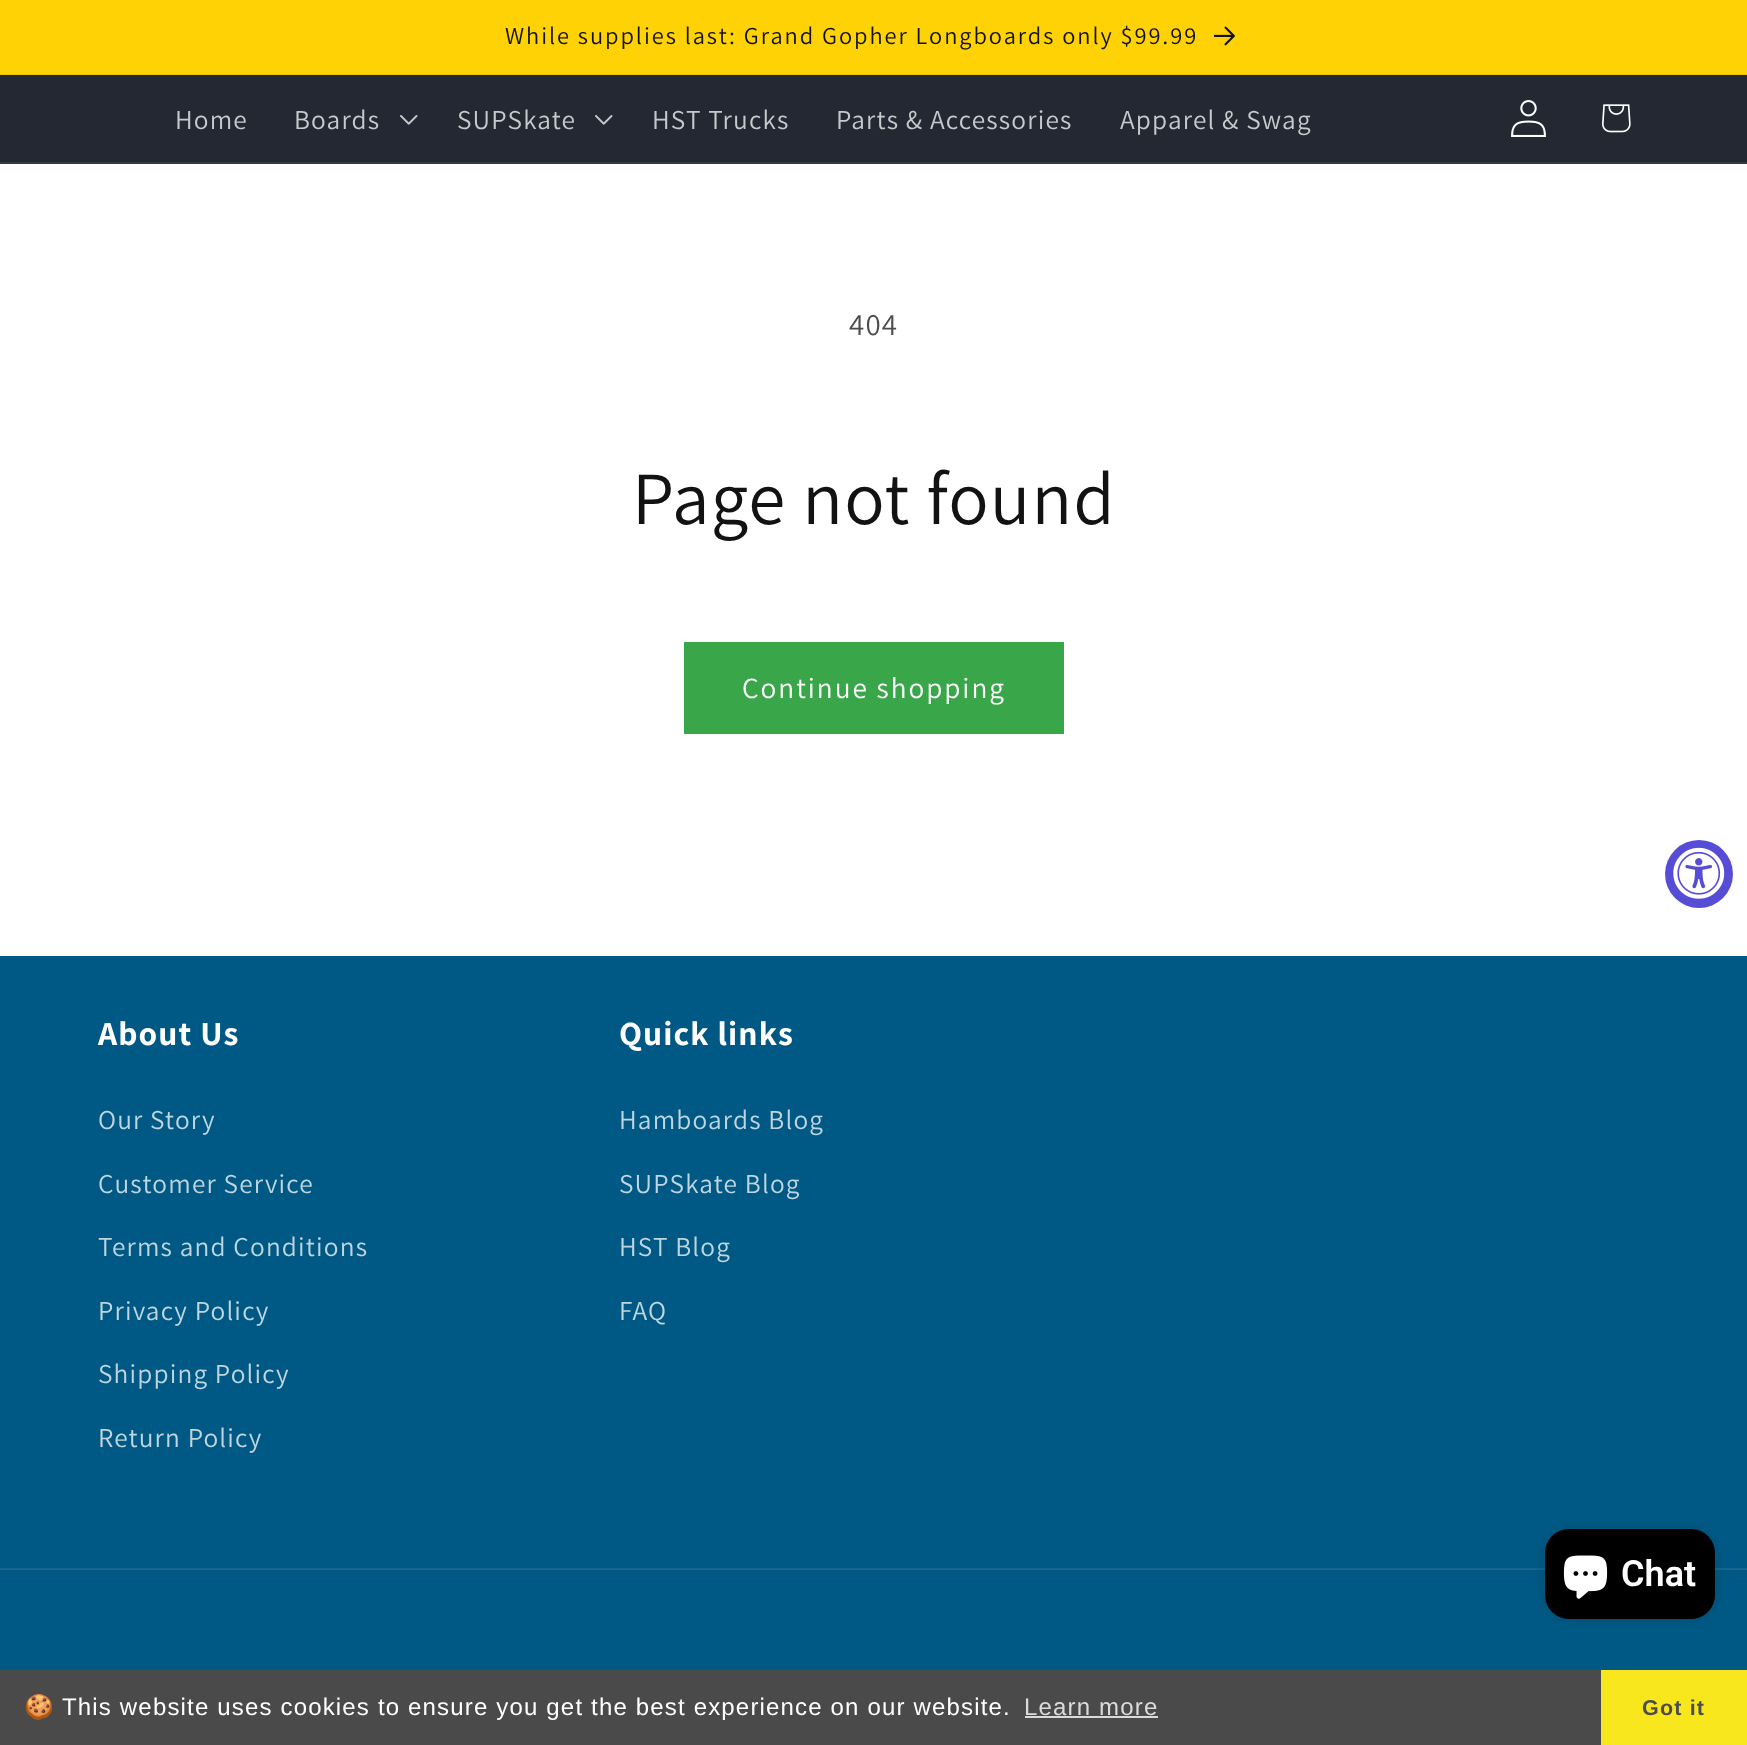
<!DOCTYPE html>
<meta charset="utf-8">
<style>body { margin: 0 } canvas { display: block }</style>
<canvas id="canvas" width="1747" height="1745"></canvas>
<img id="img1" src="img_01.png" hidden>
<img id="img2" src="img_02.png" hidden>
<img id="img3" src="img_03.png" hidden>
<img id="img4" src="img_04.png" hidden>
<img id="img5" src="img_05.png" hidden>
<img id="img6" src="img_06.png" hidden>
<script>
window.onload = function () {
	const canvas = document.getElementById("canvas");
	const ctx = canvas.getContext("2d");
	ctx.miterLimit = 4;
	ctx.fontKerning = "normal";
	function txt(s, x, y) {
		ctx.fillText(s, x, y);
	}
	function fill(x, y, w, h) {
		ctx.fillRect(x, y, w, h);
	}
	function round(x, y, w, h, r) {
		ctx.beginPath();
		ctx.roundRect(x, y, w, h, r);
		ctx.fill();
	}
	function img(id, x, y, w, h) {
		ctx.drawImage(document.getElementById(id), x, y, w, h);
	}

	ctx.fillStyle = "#FFFFFF";
	fill(0, 0, 1747, 1745);
	ctx.fillStyle = "#FFD205";
	fill(0, 0, 1747, 74);
	ctx.fillStyle = "#ECC306";
	fill(0, 74, 1747, 1);
	img("img1", 1214, 26, 21, 20);
	ctx.fillStyle = "#242833";
	fill(0, 76, 1747, 86);
	ctx.fillStyle = "#232630";
	fill(0, 75, 1747, 1);
	ctx.fillStyle = "#363943";
	fill(0, 162, 1747, 2);
	img("img2", 400, 115, 18, 10);
	img("img2", 595, 115, 18, 10);
	img("img3", 1511, 100, 35, 37);
	img("img4", 1602, 104, 29, 29);
	ctx.fillStyle = "#39A64A";
	fill(684, 642, 380, 92);
	ctx.fillStyle = "#574CD5";
	ctx.beginPath();
	ctx.arc(1699, 874, 34, 0, Math.PI * 2);
	ctx.fill();
	img("img5", 1673, 847, 52, 52);
	ctx.fillStyle = "#005984";
	fill(0, 956, 1747, 714);
	ctx.fillStyle = "#14668E";
	fill(0, 1568, 1747, 2);
	ctx.fillStyle = "rgba(0, 0, 0, 0.15)";
	ctx.filter = "blur(4px)";
	ctx.beginPath();
	ctx.roundRect(1545, 1529, 170, 90, 24);
	ctx.fill();
	ctx.filter = "none";
	ctx.fillStyle = "#000000";
	round(1545, 1529, 170, 90, 24);
	img("img6", 1563, 1555, 45, 44);
	ctx.fillStyle = "#4A4A4A";
	fill(0, 1670, 1601, 75);
	ctx.fillStyle = "#DBDBDB";
	fill(1025, 1716, 133, 2);
	ctx.fillStyle = "#F8E71C";
	fill(1601, 1670, 146, 75);
	ctx.letterSpacing = "1.95px";
	ctx.font = "24.4px Assistant";
	ctx.fillStyle = "#121212";
	txt("While supplies last: Grand Gopher Longboards only $99.99", 505, 44);
	ctx.letterSpacing = "1.17px";
	ctx.font = "27.25px Assistant";
	ctx.fillStyle = "#C8C9CC";
	txt("Home", 175, 129);
	txt("Boards", 294, 129);
	txt("SUPSkate", 457, 129);
	txt("HST Trucks", 652, 129);
	txt("Parts & Accessories", 836, 129);
	txt("Apparel & Swag", 1120, 129);
	ctx.font = "31px Assistant";
	ctx.fillStyle = "#4D4D4D";
	txt("404", 849, 335);
	ctx.letterSpacing = "1.1px";
	ctx.font = "75px Assistant";
	ctx.fillStyle = "#121212";
	txt("Page not found", 632, 524);
	ctx.letterSpacing = "1.95px";
	ctx.font = "29.25px Assistant";
	ctx.fillStyle = "#FFFFFF";
	txt("Continue shopping", 742, 698);
	ctx.letterSpacing = "1.1px";
	ctx.font = "bold 33.75px Assistant";
	txt("About Us", 98, 1045);
	ctx.letterSpacing = "1.17px";
	ctx.font = "27.25px Assistant";
	ctx.fillStyle = "#BFD6E0";
	txt("Our Story", 98, 1129);
	txt("Customer Service", 98, 1193);
	txt("Terms and Conditions", 98, 1256);
	txt("Privacy Policy", 98, 1320);
	txt("Shipping Policy", 98, 1383);
	txt("Return Policy", 98, 1447);
	ctx.letterSpacing = "1.1px";
	ctx.font = "bold 33.75px Assistant";
	ctx.fillStyle = "#FFFFFF";
	txt("Quick links", 619, 1045);
	ctx.letterSpacing = "1.17px";
	ctx.font = "27.25px Assistant";
	ctx.fillStyle = "#BFD6E0";
	txt("Hamboards Blog", 619, 1129);
	txt("SUPSkate Blog", 619, 1193);
	txt("HST Blog", 619, 1256);
	txt("FAQ", 619, 1320);
	ctx.letterSpacing = "0px";
	ctx.font = "600 36px Roboto";
	ctx.fillStyle = "#FFFFFF";
	txt("Chat", 1621, 1586);
	ctx.letterSpacing = "1.17px";
	ctx.font = "24px Noto Color Emoji";
	txt("🍪", 24, 1715);
	ctx.font = "24px Liberation Sans";
	txt("This website uses cookies to ensure you get the best experience on our website.", 62, 1715);
	ctx.fillStyle = "#DBDBDB";
	txt("Learn more", 1024, 1715);
	ctx.font = "bold 21.5px Liberation Sans";
	ctx.fillStyle = "#4D4D4D";
	txt("Got it", 1642, 1715);
};
</script>
